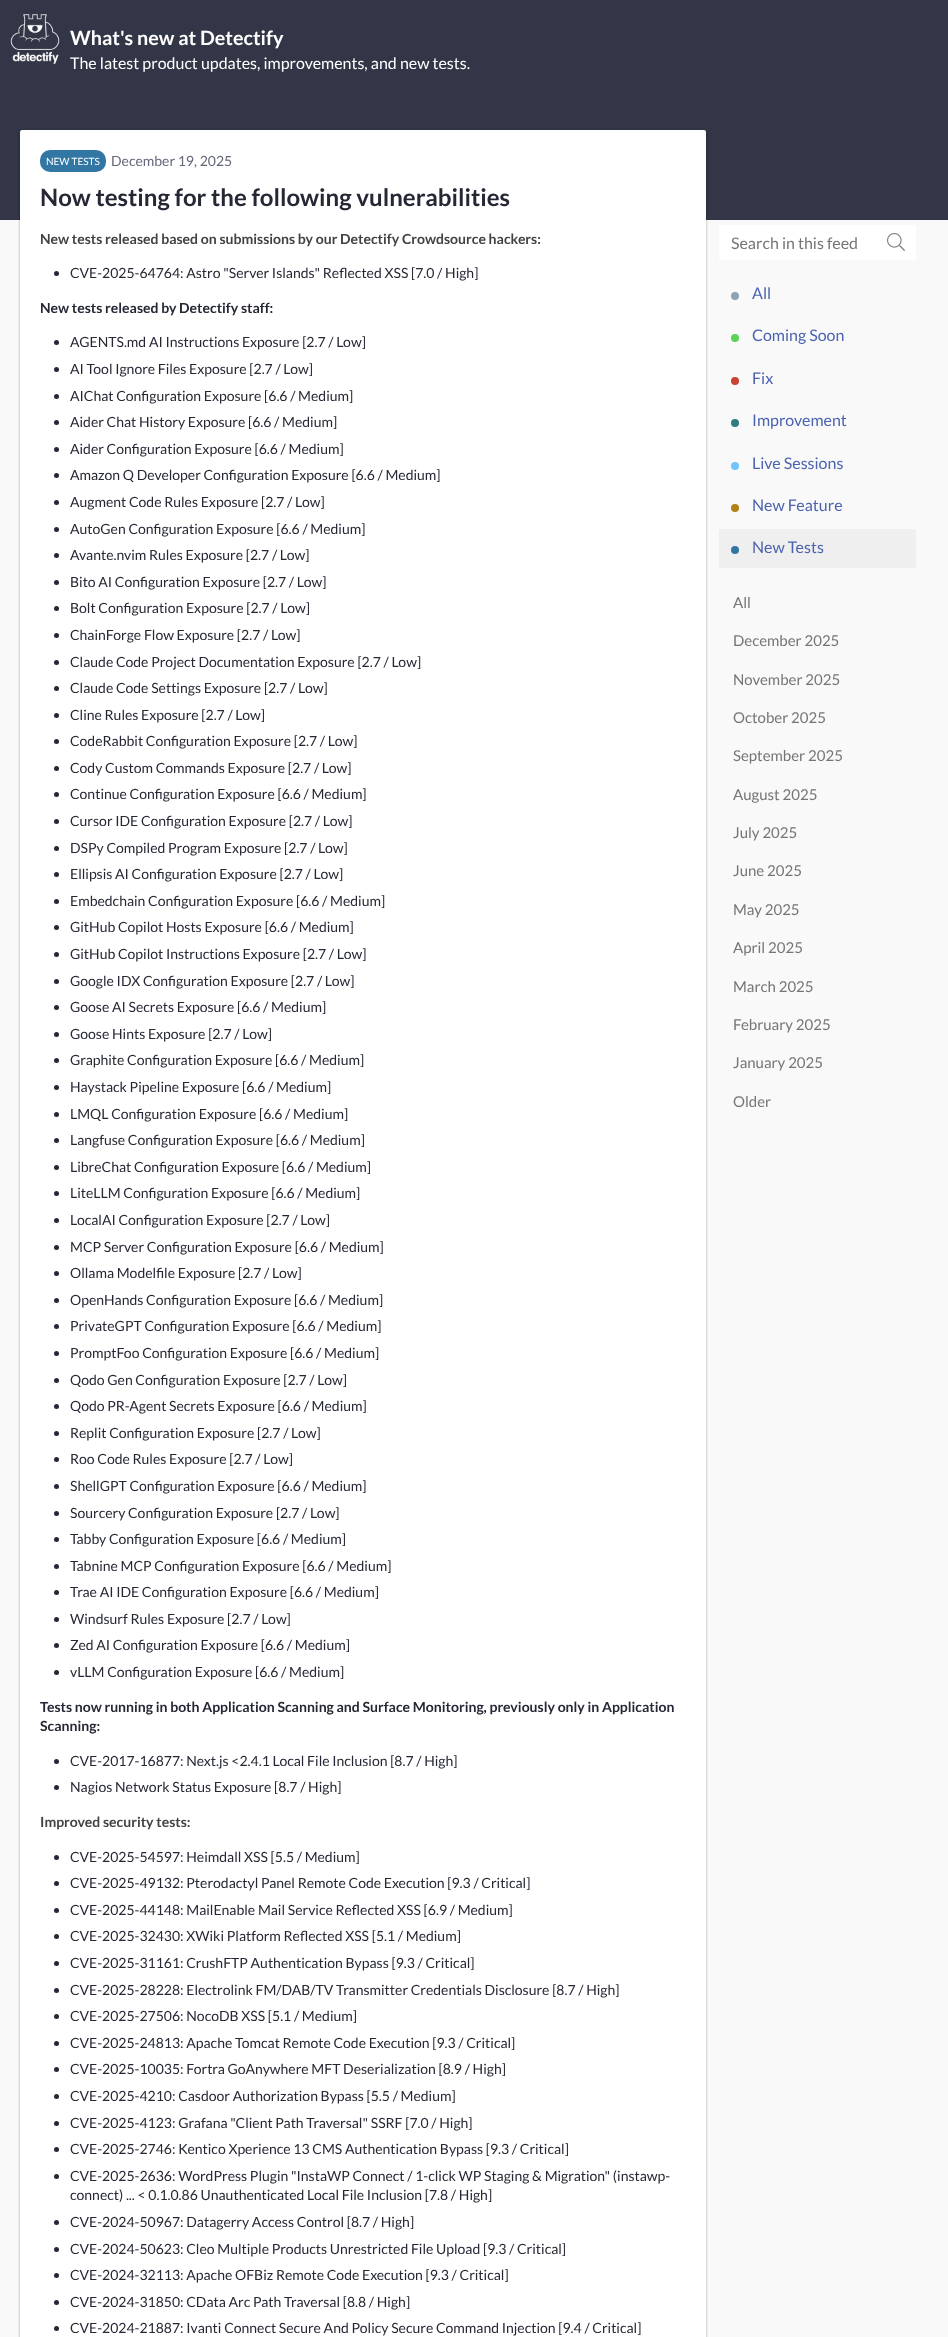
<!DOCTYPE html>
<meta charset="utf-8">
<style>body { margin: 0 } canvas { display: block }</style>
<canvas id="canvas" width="948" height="2337"></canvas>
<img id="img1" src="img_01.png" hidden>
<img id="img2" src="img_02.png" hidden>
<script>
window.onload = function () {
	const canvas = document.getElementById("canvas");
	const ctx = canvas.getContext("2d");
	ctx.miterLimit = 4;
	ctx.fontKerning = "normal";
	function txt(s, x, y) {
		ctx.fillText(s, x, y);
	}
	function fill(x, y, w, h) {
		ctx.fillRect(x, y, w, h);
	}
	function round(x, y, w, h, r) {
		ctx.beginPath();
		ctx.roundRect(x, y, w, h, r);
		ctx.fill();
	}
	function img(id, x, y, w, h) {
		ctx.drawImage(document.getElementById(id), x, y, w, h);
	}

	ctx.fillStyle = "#F9F9F9";
	fill(0, 0, 948, 2337);
	ctx.fillStyle = "#333646";
	fill(0, 0, 948, 220);
	img("img1", 10, 14, 50, 50);
	ctx.fillStyle = "rgba(0, 0, 0, 0.24)";
	ctx.filter = "blur(1px)";
	ctx.beginPath();
	ctx.roundRect(20, 131, 686, 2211, 2);
	ctx.fill();
	ctx.filter = "none";
	ctx.fillStyle = "rgba(0, 0, 0, 0.12)";
	ctx.filter = "blur(1.5px)";
	ctx.beginPath();
	ctx.roundRect(20, 131, 686, 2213, 2);
	ctx.fill();
	ctx.filter = "none";
	ctx.fillStyle = "#FFFFFF";
	ctx.beginPath();
	ctx.roundRect(20, 130, 686, 2207, [2, 2, 0, 0]);
	ctx.fill();
	ctx.fillStyle = "#3277A3";
	round(40, 150, 66, 22, 10);
	ctx.fillStyle = "#252734";
	ctx.beginPath();
	ctx.arc(56.5, 273.5, 2.5, 0, Math.PI * 2);
	ctx.fill();
	ctx.beginPath();
	ctx.arc(56.5, 342.5, 2.5, 0, Math.PI * 2);
	ctx.fill();
	ctx.beginPath();
	ctx.arc(56.5, 369.5, 2.5, 0, Math.PI * 2);
	ctx.fill();
	ctx.beginPath();
	ctx.arc(56.5, 396.5, 2.5, 0, Math.PI * 2);
	ctx.fill();
	ctx.beginPath();
	ctx.arc(56.5, 422.5, 2.5, 0, Math.PI * 2);
	ctx.fill();
	ctx.beginPath();
	ctx.arc(56.5, 449.5, 2.5, 0, Math.PI * 2);
	ctx.fill();
	ctx.beginPath();
	ctx.arc(56.5, 475.5, 2.5, 0, Math.PI * 2);
	ctx.fill();
	ctx.beginPath();
	ctx.arc(56.5, 502.5, 2.5, 0, Math.PI * 2);
	ctx.fill();
	ctx.beginPath();
	ctx.arc(56.5, 529.5, 2.5, 0, Math.PI * 2);
	ctx.fill();
	ctx.beginPath();
	ctx.arc(56.5, 555.5, 2.5, 0, Math.PI * 2);
	ctx.fill();
	ctx.beginPath();
	ctx.arc(56.5, 582.5, 2.5, 0, Math.PI * 2);
	ctx.fill();
	ctx.beginPath();
	ctx.arc(56.5, 608.5, 2.5, 0, Math.PI * 2);
	ctx.fill();
	ctx.beginPath();
	ctx.arc(56.5, 635.5, 2.5, 0, Math.PI * 2);
	ctx.fill();
	ctx.beginPath();
	ctx.arc(56.5, 662.5, 2.5, 0, Math.PI * 2);
	ctx.fill();
	ctx.beginPath();
	ctx.arc(56.5, 688.5, 2.5, 0, Math.PI * 2);
	ctx.fill();
	ctx.beginPath();
	ctx.arc(56.5, 715.5, 2.5, 0, Math.PI * 2);
	ctx.fill();
	ctx.beginPath();
	ctx.arc(56.5, 741.5, 2.5, 0, Math.PI * 2);
	ctx.fill();
	ctx.beginPath();
	ctx.arc(56.5, 768.5, 2.5, 0, Math.PI * 2);
	ctx.fill();
	ctx.beginPath();
	ctx.arc(56.5, 794.5, 2.5, 0, Math.PI * 2);
	ctx.fill();
	ctx.beginPath();
	ctx.arc(56.5, 821.5, 2.5, 0, Math.PI * 2);
	ctx.fill();
	ctx.beginPath();
	ctx.arc(56.5, 848.5, 2.5, 0, Math.PI * 2);
	ctx.fill();
	ctx.beginPath();
	ctx.arc(56.5, 874.5, 2.5, 0, Math.PI * 2);
	ctx.fill();
	ctx.beginPath();
	ctx.arc(56.5, 901.5, 2.5, 0, Math.PI * 2);
	ctx.fill();
	ctx.beginPath();
	ctx.arc(56.5, 927.5, 2.5, 0, Math.PI * 2);
	ctx.fill();
	ctx.beginPath();
	ctx.arc(56.5, 954.5, 2.5, 0, Math.PI * 2);
	ctx.fill();
	ctx.beginPath();
	ctx.arc(56.5, 981.5, 2.5, 0, Math.PI * 2);
	ctx.fill();
	ctx.beginPath();
	ctx.arc(56.5, 1007.5, 2.5, 0, Math.PI * 2);
	ctx.fill();
	ctx.beginPath();
	ctx.arc(56.5, 1034.5, 2.5, 0, Math.PI * 2);
	ctx.fill();
	ctx.beginPath();
	ctx.arc(56.5, 1060.5, 2.5, 0, Math.PI * 2);
	ctx.fill();
	ctx.beginPath();
	ctx.arc(56.5, 1087.5, 2.5, 0, Math.PI * 2);
	ctx.fill();
	ctx.beginPath();
	ctx.arc(56.5, 1114.5, 2.5, 0, Math.PI * 2);
	ctx.fill();
	ctx.beginPath();
	ctx.arc(56.5, 1140.5, 2.5, 0, Math.PI * 2);
	ctx.fill();
	ctx.beginPath();
	ctx.arc(56.5, 1167.5, 2.5, 0, Math.PI * 2);
	ctx.fill();
	ctx.beginPath();
	ctx.arc(56.5, 1193.5, 2.5, 0, Math.PI * 2);
	ctx.fill();
	ctx.beginPath();
	ctx.arc(56.5, 1220.5, 2.5, 0, Math.PI * 2);
	ctx.fill();
	ctx.beginPath();
	ctx.arc(56.5, 1247.5, 2.5, 0, Math.PI * 2);
	ctx.fill();
	ctx.beginPath();
	ctx.arc(56.5, 1273.5, 2.5, 0, Math.PI * 2);
	ctx.fill();
	ctx.beginPath();
	ctx.arc(56.5, 1300.5, 2.5, 0, Math.PI * 2);
	ctx.fill();
	ctx.beginPath();
	ctx.arc(56.5, 1326.5, 2.5, 0, Math.PI * 2);
	ctx.fill();
	ctx.beginPath();
	ctx.arc(56.5, 1353.5, 2.5, 0, Math.PI * 2);
	ctx.fill();
	ctx.beginPath();
	ctx.arc(56.5, 1380.5, 2.5, 0, Math.PI * 2);
	ctx.fill();
	ctx.beginPath();
	ctx.arc(56.5, 1406.5, 2.5, 0, Math.PI * 2);
	ctx.fill();
	ctx.beginPath();
	ctx.arc(56.5, 1433.5, 2.5, 0, Math.PI * 2);
	ctx.fill();
	ctx.beginPath();
	ctx.arc(56.5, 1459.5, 2.5, 0, Math.PI * 2);
	ctx.fill();
	ctx.beginPath();
	ctx.arc(56.5, 1486.5, 2.5, 0, Math.PI * 2);
	ctx.fill();
	ctx.beginPath();
	ctx.arc(56.5, 1513.5, 2.5, 0, Math.PI * 2);
	ctx.fill();
	ctx.beginPath();
	ctx.arc(56.5, 1539.5, 2.5, 0, Math.PI * 2);
	ctx.fill();
	ctx.beginPath();
	ctx.arc(56.5, 1566.5, 2.5, 0, Math.PI * 2);
	ctx.fill();
	ctx.beginPath();
	ctx.arc(56.5, 1592.5, 2.5, 0, Math.PI * 2);
	ctx.fill();
	ctx.beginPath();
	ctx.arc(56.5, 1619.5, 2.5, 0, Math.PI * 2);
	ctx.fill();
	ctx.beginPath();
	ctx.arc(56.5, 1645.5, 2.5, 0, Math.PI * 2);
	ctx.fill();
	ctx.beginPath();
	ctx.arc(56.5, 1672.5, 2.5, 0, Math.PI * 2);
	ctx.fill();
	ctx.beginPath();
	ctx.arc(56.5, 1761.5, 2.5, 0, Math.PI * 2);
	ctx.fill();
	ctx.beginPath();
	ctx.arc(56.5, 1787.5, 2.5, 0, Math.PI * 2);
	ctx.fill();
	ctx.beginPath();
	ctx.arc(56.5, 1857.5, 2.5, 0, Math.PI * 2);
	ctx.fill();
	ctx.beginPath();
	ctx.arc(56.5, 1883.5, 2.5, 0, Math.PI * 2);
	ctx.fill();
	ctx.beginPath();
	ctx.arc(56.5, 1910.5, 2.5, 0, Math.PI * 2);
	ctx.fill();
	ctx.beginPath();
	ctx.arc(56.5, 1936.5, 2.5, 0, Math.PI * 2);
	ctx.fill();
	ctx.beginPath();
	ctx.arc(56.5, 1963.5, 2.5, 0, Math.PI * 2);
	ctx.fill();
	ctx.beginPath();
	ctx.arc(56.5, 1990.5, 2.5, 0, Math.PI * 2);
	ctx.fill();
	ctx.beginPath();
	ctx.arc(56.5, 2016.5, 2.5, 0, Math.PI * 2);
	ctx.fill();
	ctx.beginPath();
	ctx.arc(56.5, 2043.5, 2.5, 0, Math.PI * 2);
	ctx.fill();
	ctx.beginPath();
	ctx.arc(56.5, 2069.5, 2.5, 0, Math.PI * 2);
	ctx.fill();
	ctx.beginPath();
	ctx.arc(56.5, 2096.5, 2.5, 0, Math.PI * 2);
	ctx.fill();
	ctx.beginPath();
	ctx.arc(56.5, 2123.5, 2.5, 0, Math.PI * 2);
	ctx.fill();
	ctx.beginPath();
	ctx.arc(56.5, 2149.5, 2.5, 0, Math.PI * 2);
	ctx.fill();
	ctx.beginPath();
	ctx.arc(56.5, 2176.5, 2.5, 0, Math.PI * 2);
	ctx.fill();
	ctx.beginPath();
	ctx.arc(56.5, 2222.5, 2.5, 0, Math.PI * 2);
	ctx.fill();
	ctx.beginPath();
	ctx.arc(56.5, 2249.5, 2.5, 0, Math.PI * 2);
	ctx.fill();
	ctx.beginPath();
	ctx.arc(56.5, 2275.5, 2.5, 0, Math.PI * 2);
	ctx.fill();
	ctx.beginPath();
	ctx.arc(56.5, 2302.5, 2.5, 0, Math.PI * 2);
	ctx.fill();
	ctx.beginPath();
	ctx.arc(56.5, 2328.5, 2.5, 0, Math.PI * 2);
	ctx.fill();
	ctx.fillStyle = "#FFFFFF";
	round(719, 225, 197, 35, 2);
	img("img2", 887, 233, 18, 18);
	ctx.fillStyle = "#8DA2B5";
	ctx.beginPath();
	ctx.arc(735, 296, 4, 0, Math.PI * 2);
	ctx.fill();
	ctx.fillStyle = "#59D457";
	ctx.beginPath();
	ctx.arc(735, 338, 4, 0, Math.PI * 2);
	ctx.fill();
	ctx.fillStyle = "#C94234";
	ctx.beginPath();
	ctx.arc(735, 381, 4, 0, Math.PI * 2);
	ctx.fill();
	ctx.fillStyle = "#2F7C7D";
	ctx.beginPath();
	ctx.arc(735, 423, 4, 0, Math.PI * 2);
	ctx.fill();
	ctx.fillStyle = "#71C4FF";
	ctx.beginPath();
	ctx.arc(735, 466, 4, 0, Math.PI * 2);
	ctx.fill();
	ctx.fillStyle = "#B18314";
	ctx.beginPath();
	ctx.arc(735, 508, 4, 0, Math.PI * 2);
	ctx.fill();
	ctx.fillStyle = "#EFEFEF";
	round(719, 529, 197, 39, 2);
	ctx.fillStyle = "#3277A3";
	ctx.beginPath();
	ctx.arc(735, 550, 4, 0, Math.PI * 2);
	ctx.fill();
	ctx.font = "bold 19.75px Lato";
	ctx.fillStyle = "#FFFFFF";
	txt("What's new at Detectify", 70, 45);
	ctx.font = "16px Lato";
	txt("The latest product updates, improvements, and new tests.", 70, 69);
	ctx.font = "10px Lato";
	txt("NEW TESTS", 46, 165);
	ctx.font = "14px Lato";
	ctx.fillStyle = "#64697A";
	txt("December 19, 2025", 111, 166);
	ctx.font = "bold 24px Lato";
	ctx.fillStyle = "#252734";
	txt("Now testing for the following vulnerabilities", 40, 206);
	ctx.font = "bold 14px Lato";
	ctx.fillStyle = "#424242";
	txt("New tests released based on submissions by our Detectify Crowdsource hackers:", 40, 244);
	ctx.font = "14px Lato";
	ctx.fillStyle = "#252734";
	txt("CVE-2025-64764: Astro \"Server Islands\" Reflected XSS [7.0 / High]", 70, 278);
	ctx.font = "bold 14px Lato";
	txt("New tests released by Detectify staff:", 40, 313);
	ctx.font = "14px Lato";
	txt("AGENTS.md AI Instructions Exposure [2.7 / Low]", 70, 347);
	txt("AI Tool Ignore Files Exposure [2.7 / Low]", 70, 374);
	txt("AIChat Configuration Exposure [6.6 / Medium]", 70, 401);
	txt("Aider Chat History Exposure [6.6 / Medium]", 70, 427);
	txt("Aider Configuration Exposure [6.6 / Medium]", 70, 454);
	txt("Amazon Q Developer Configuration Exposure [6.6 / Medium]", 70, 480);
	txt("Augment Code Rules Exposure [2.7 / Low]", 70, 507);
	txt("AutoGen Configuration Exposure [6.6 / Medium]", 70, 534);
	txt("Avante.nvim Rules Exposure [2.7 / Low]", 70, 560);
	txt("Bito AI Configuration Exposure [2.7 / Low]", 70, 587);
	txt("Bolt Configuration Exposure [2.7 / Low]", 70, 613);
	txt("ChainForge Flow Exposure [2.7 / Low]", 70, 640);
	txt("Claude Code Project Documentation Exposure [2.7 / Low]", 70, 667);
	txt("Claude Code Settings Exposure [2.7 / Low]", 70, 693);
	txt("Cline Rules Exposure [2.7 / Low]", 70, 720);
	txt("CodeRabbit Configuration Exposure [2.7 / Low]", 70, 746);
	txt("Cody Custom Commands Exposure [2.7 / Low]", 70, 773);
	txt("Continue Configuration Exposure [6.6 / Medium]", 70, 799);
	txt("Cursor IDE Configuration Exposure [2.7 / Low]", 70, 826);
	txt("DSPy Compiled Program Exposure [2.7 / Low]", 70, 853);
	txt("Ellipsis AI Configuration Exposure [2.7 / Low]", 70, 879);
	txt("Embedchain Configuration Exposure [6.6 / Medium]", 70, 906);
	txt("GitHub Copilot Hosts Exposure [6.6 / Medium]", 70, 932);
	txt("GitHub Copilot Instructions Exposure [2.7 / Low]", 70, 959);
	txt("Google IDX Configuration Exposure [2.7 / Low]", 70, 986);
	txt("Goose AI Secrets Exposure [6.6 / Medium]", 70, 1012);
	txt("Goose Hints Exposure [2.7 / Low]", 70, 1039);
	txt("Graphite Configuration Exposure [6.6 / Medium]", 70, 1065);
	txt("Haystack Pipeline Exposure [6.6 / Medium]", 70, 1092);
	txt("LMQL Configuration Exposure [6.6 / Medium]", 70, 1119);
	txt("Langfuse Configuration Exposure [6.6 / Medium]", 70, 1145);
	txt("LibreChat Configuration Exposure [6.6 / Medium]", 70, 1172);
	txt("LiteLLM Configuration Exposure [6.6 / Medium]", 70, 1198);
	txt("LocalAI Configuration Exposure [2.7 / Low]", 70, 1225);
	txt("MCP Server Configuration Exposure [6.6 / Medium]", 70, 1252);
	txt("Ollama Modelfile Exposure [2.7 / Low]", 70, 1278);
	txt("OpenHands Configuration Exposure [6.6 / Medium]", 70, 1305);
	txt("PrivateGPT Configuration Exposure [6.6 / Medium]", 70, 1331);
	txt("PromptFoo Configuration Exposure [6.6 / Medium]", 70, 1358);
	txt("Qodo Gen Configuration Exposure [2.7 / Low]", 70, 1385);
	txt("Qodo PR-Agent Secrets Exposure [6.6 / Medium]", 70, 1411);
	txt("Replit Configuration Exposure [2.7 / Low]", 70, 1438);
	txt("Roo Code Rules Exposure [2.7 / Low]", 70, 1464);
	txt("ShellGPT Configuration Exposure [6.6 / Medium]", 70, 1491);
	txt("Sourcery Configuration Exposure [2.7 / Low]", 70, 1518);
	txt("Tabby Configuration Exposure [6.6 / Medium]", 70, 1544);
	txt("Tabnine MCP Configuration Exposure [6.6 / Medium]", 70, 1571);
	txt("Trae AI IDE Configuration Exposure [6.6 / Medium]", 70, 1597);
	txt("Windsurf Rules Exposure [2.7 / Low]", 70, 1624);
	txt("Zed AI Configuration Exposure [6.6 / Medium]", 70, 1650);
	txt("vLLM Configuration Exposure [6.6 / Medium]", 70, 1677);
	ctx.font = "bold 14px Lato";
	txt("Tests now running in both Application Scanning and Surface Monitoring, previously only in Application", 40, 1712);
	txt("Scanning:", 40, 1731);
	ctx.font = "14px Lato";
	txt("CVE-2017-16877: Next.js <2.4.1 Local File Inclusion [8.7 / High]", 70, 1766);
	txt("Nagios Network Status Exposure [8.7 / High]", 70, 1792);
	ctx.font = "bold 14px Lato";
	ctx.fillStyle = "#424242";
	txt("Improved security tests:", 40, 1827);
	ctx.font = "14px Lato";
	ctx.fillStyle = "#252734";
	txt("CVE-2025-54597: Heimdall XSS [5.5 / Medium]", 70, 1862);
	txt("CVE-2025-49132: Pterodactyl Panel Remote Code Execution [9.3 / Critical]", 70, 1888);
	txt("CVE-2025-44148: MailEnable Mail Service Reflected XSS [6.9 / Medium]", 70, 1915);
	txt("CVE-2025-32430: XWiki Platform Reflected XSS [5.1 / Medium]", 70, 1941);
	txt("CVE-2025-31161: CrushFTP Authentication Bypass [9.3 / Critical]", 70, 1968);
	txt("CVE-2025-28228: Electrolink FM/DAB/TV Transmitter Credentials Disclosure [8.7 / High]", 70, 1995);
	txt("CVE-2025-27506: NocoDB XSS [5.1 / Medium]", 70, 2021);
	txt("CVE-2025-24813: Apache Tomcat Remote Code Execution [9.3 / Critical]", 70, 2048);
	txt("CVE-2025-10035: Fortra GoAnywhere MFT Deserialization [8.9 / High]", 70, 2074);
	txt("CVE-2025-4210: Casdoor Authorization Bypass [5.5 / Medium]", 70, 2101);
	txt("CVE-2025-4123: Grafana \"Client Path Traversal\" SSRF [7.0 / High]", 70, 2128);
	txt("CVE-2025-2746: Kentico Xperience 13 CMS Authentication Bypass [9.3 / Critical]", 70, 2154);
	txt("CVE-2025-2636: WordPress Plugin \"InstaWP Connect / 1-click WP Staging & Migration\" (instawp-", 70, 2181);
	txt("connect) ... < 0.1.0.86 Unauthenticated Local File Inclusion [7.8 / High]", 70, 2200);
	txt("CVE-2024-50967: Datagerry Access Control [8.7 / High]", 70, 2227);
	txt("CVE-2024-50623: Cleo Multiple Products Unrestricted File Upload [9.3 / Critical]", 70, 2254);
	txt("CVE-2024-32113: Apache OFBiz Remote Code Execution [9.3 / Critical]", 70, 2280);
	txt("CVE-2024-31850: CData Arc Path Traversal [8.8 / High]", 70, 2307);
	txt("CVE-2024-21887: Ivanti Connect Secure And Policy Secure Command Injection [9.4 / Critical]", 70, 2333);
	ctx.font = "16px Lato";
	ctx.fillStyle = "#757575";
	txt("Search in this feed", 731, 249);
	ctx.fillStyle = "#4B63AF";
	txt("All", 752, 299);
	txt("Coming Soon", 752, 341);
	txt("Fix", 752, 384);
	txt("Improvement", 752, 426);
	txt("Live Sessions", 752, 469);
	txt("New Feature", 752, 511);
	txt("New Tests", 752, 553);
	ctx.font = "15px Lato";
	ctx.fillStyle = "#757575";
	txt("All", 733, 608);
	txt("December 2025", 733, 646);
	txt("November 2025", 733, 685);
	txt("October 2025", 733, 723);
	txt("September 2025", 733, 761);
	txt("August 2025", 733, 800);
	txt("July 2025", 733, 838);
	txt("June 2025", 733, 876);
	txt("May 2025", 733, 915);
	txt("April 2025", 733, 953);
	txt("March 2025", 733, 992);
	txt("February 2025", 733, 1030);
	txt("January 2025", 733, 1068);
	txt("Older", 733, 1107);
};
</script>
